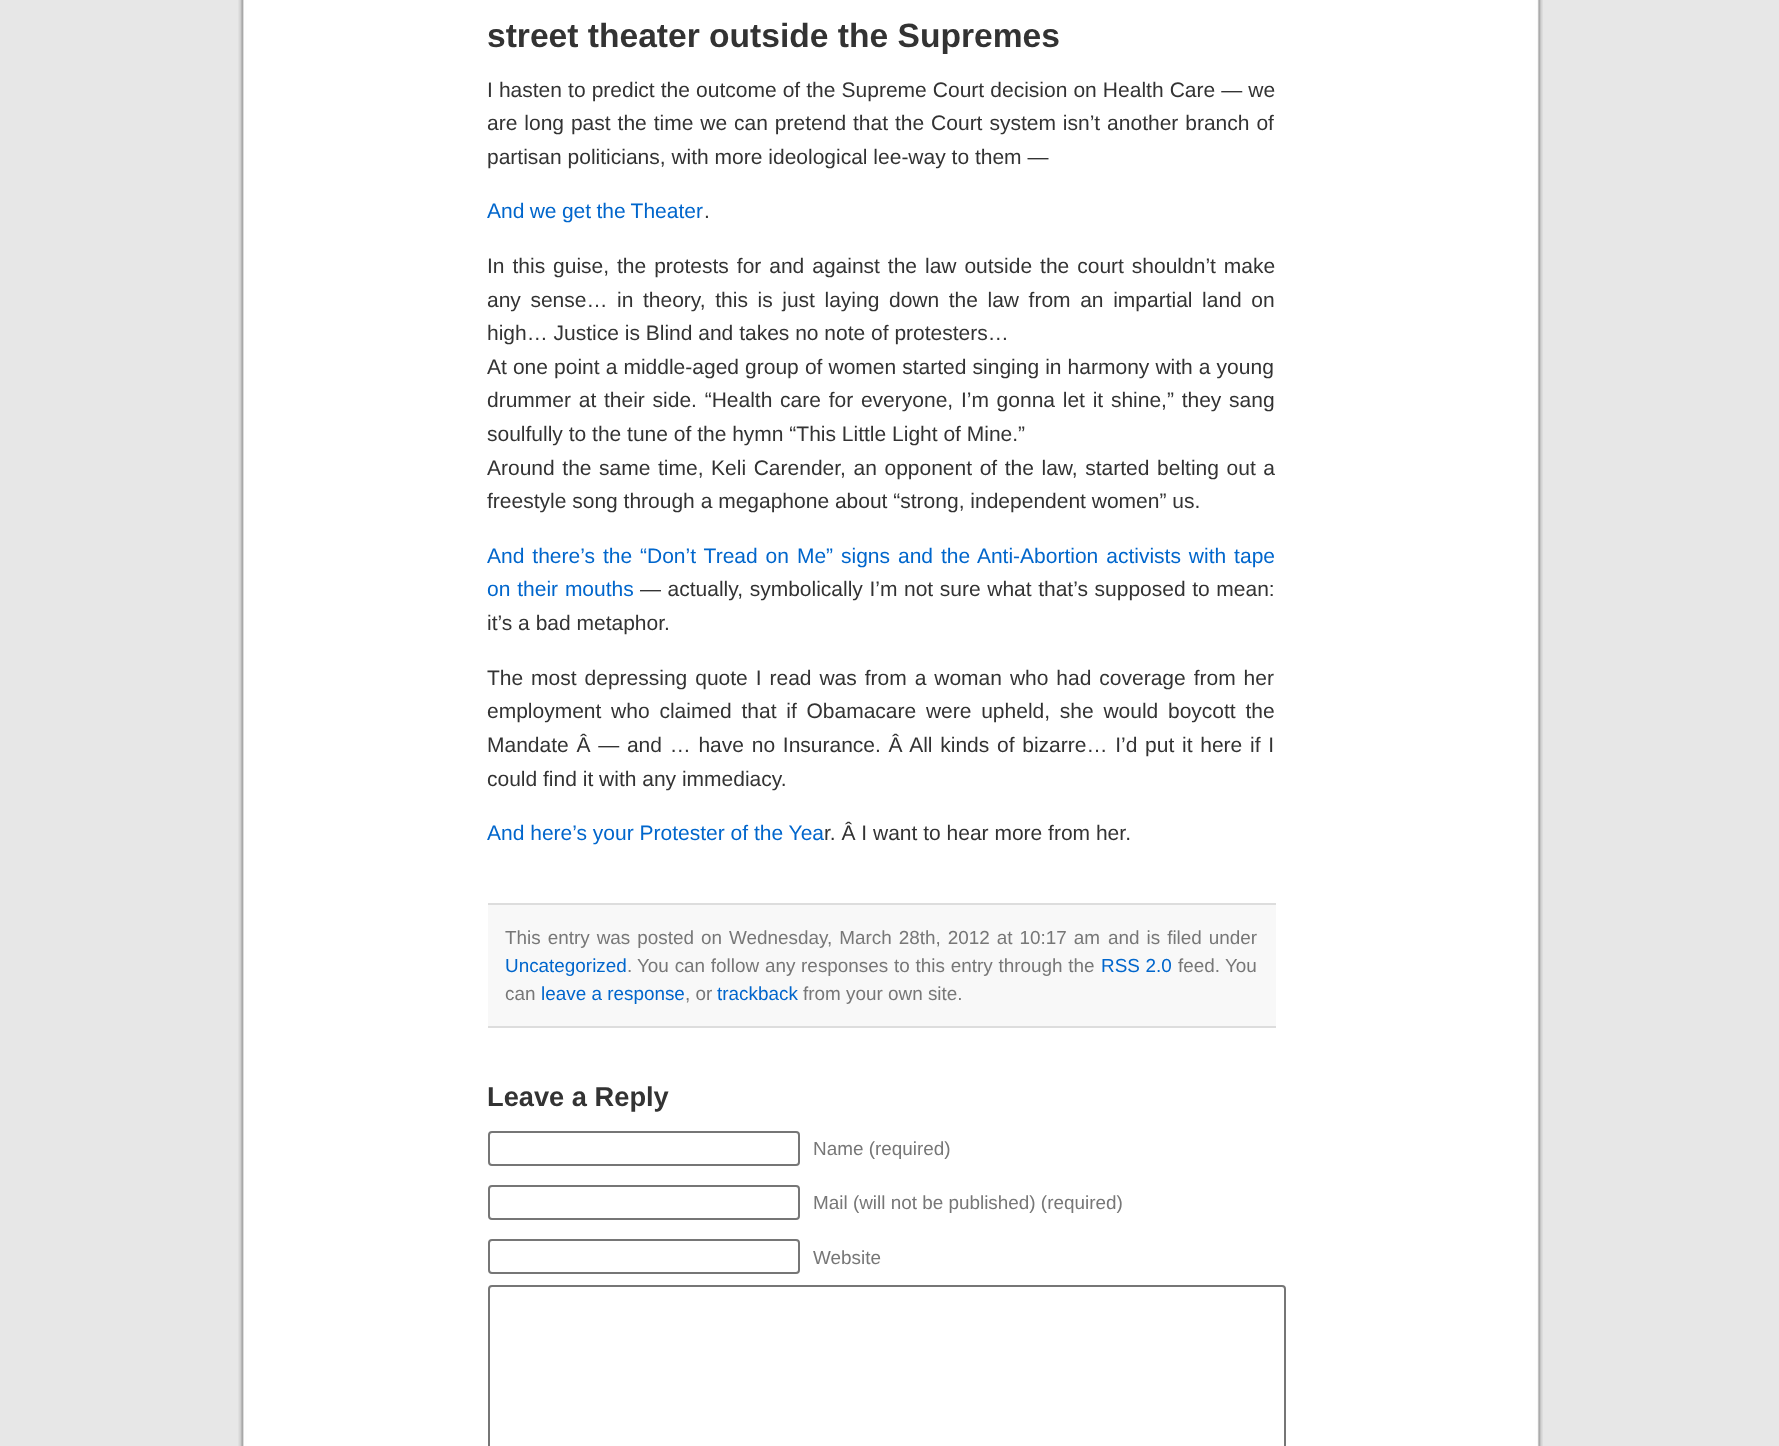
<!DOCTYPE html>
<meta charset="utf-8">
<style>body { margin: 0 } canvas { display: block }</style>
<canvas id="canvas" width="1779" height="1446"></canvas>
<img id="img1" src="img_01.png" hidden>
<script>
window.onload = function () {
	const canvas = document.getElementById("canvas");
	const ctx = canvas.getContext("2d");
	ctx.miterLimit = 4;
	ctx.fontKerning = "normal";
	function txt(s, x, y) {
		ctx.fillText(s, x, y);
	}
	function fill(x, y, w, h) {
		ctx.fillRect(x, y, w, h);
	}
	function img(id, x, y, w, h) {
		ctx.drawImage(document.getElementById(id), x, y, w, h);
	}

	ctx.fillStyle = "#E7E7E7";
	fill(0, 0, 1779, 1446);
	img("img1", 238, 0, 1305, 1446);
	ctx.fillStyle = "#F8F8F8";
	fill(488, 905, 788, 121);
	ctx.fillStyle = "#DDDDDD";
	fill(488, 903, 788, 2);
	fill(488, 1026, 788, 2);
	ctx.beginPath();
	ctx.roundRect(489, 1132, 310, 33, 3);
	ctx.strokeStyle = "#767676";
	ctx.lineWidth = 2;
	ctx.stroke();
	ctx.beginPath();
	ctx.roundRect(489, 1186, 310, 33, 3);
	ctx.stroke();
	ctx.beginPath();
	ctx.roundRect(489, 1240, 310, 33, 3);
	ctx.stroke();
	ctx.beginPath();
	ctx.roundRect(489, 1286, 796, 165, 3);
	ctx.stroke();
	ctx.font = "bold 33.6px Liberation Sans";
	ctx.fillStyle = "#333333";
	txt("street theater outside the Supremes", 487, 47);
	ctx.wordSpacing = "0.25px";
	ctx.font = "21px Liberation Sans";
	txt("I hasten to predict the outcome of the Supreme Court decision on Health Care — we", 487, 97);
	ctx.wordSpacing = "1.1px";
	txt("are long past the time we can pretend that the Court system isn’t another branch of", 487, 130);
	ctx.wordSpacing = "0px";
	txt("partisan politicians, with more ideological lee-way to them —", 487, 164);
	ctx.wordSpacing = "-0.5px";
	ctx.fillStyle = "#0066CC";
	txt("And we get the Theater", 487, 218);
	ctx.wordSpacing = "0px";
	ctx.fillStyle = "#333333";
	txt(".", 704, 218);
	ctx.wordSpacing = "2.1px";
	txt("In this guise, the protests for and against the law outside the court shouldn’t make", 487, 273);
	ctx.wordSpacing = "3.75px";
	txt("any sense… in theory, this is just laying down the law from an impartial land on", 487, 307);
	ctx.wordSpacing = "0px";
	txt("high… Justice is Blind and takes no note of protesters…", 487, 340);
	ctx.wordSpacing = "0.25px";
	txt("At one point a middle-aged group of women started singing in harmony with a young", 487, 374);
	ctx.wordSpacing = "1.9px";
	txt("drummer at their side. “Health care for everyone, I’m gonna let it shine,” they sang", 487, 407);
	ctx.wordSpacing = "0px";
	txt("soulfully to the tune of the hymn “This Little Light of Mine.”", 487, 441);
	ctx.wordSpacing = "1.75px";
	txt("Around the same time, Keli Carender, an opponent of the law, started belting out a", 487, 475);
	ctx.wordSpacing = "0px";
	txt("freestyle song through a megaphone about “strong, independent women” us.", 487, 508);
	ctx.wordSpacing = "2.1px";
	ctx.fillStyle = "#0066CC";
	txt("And there’s the “Don’t Tread on Me” signs and the Anti-Abortion activists with tape", 487, 563);
	ctx.wordSpacing = "1px";
	txt("on their mouths", 487, 596);
	ctx.wordSpacing = "0.75px";
	ctx.fillStyle = "#333333";
	txt("— actually, symbolically I’m not sure what that’s supposed to mean:", 640, 596);
	ctx.wordSpacing = "0px";
	txt("it’s a bad metaphor.", 487, 630);
	ctx.wordSpacing = "2.1px";
	txt("The most depressing quote I read was from a woman who had coverage from her", 487, 685);
	ctx.wordSpacing = "3.9px";
	txt("employment who claimed that if Obamacare were upheld, she would boycott the", 487, 718);
	ctx.wordSpacing = "1.9px";
	txt("Mandate Â — and … have no Insurance. Â All kinds of bizarre… I’d put it here if I", 487, 752);
	ctx.wordSpacing = "0px";
	txt("could find it with any immediacy.", 487, 786);
	ctx.fillStyle = "#0066CC";
	txt("And here’s your Protester of the Yea", 487, 840);
	ctx.fillStyle = "#333333";
	txt("r. Â I want to hear more from her.", 824, 840);
	ctx.wordSpacing = "1.75px";
	ctx.font = "18.9px Liberation Sans";
	ctx.fillStyle = "#777777";
	txt("This entry was posted", 505, 944);
	txt("on Wednesday, March 28th, 2012 at 10:17 am", 701, 944);
	txt("and is filed under", 1108, 944);
	ctx.wordSpacing = "0px";
	ctx.fillStyle = "#0066CC";
	txt("Uncategorized", 505, 972);
	ctx.fillStyle = "#777777";
	txt(".", 627, 972);
	ctx.wordSpacing = "0.5px";
	txt("You can follow any responses to this entry through the", 637, 972);
	ctx.fillStyle = "#0066CC";
	txt("RSS 2.0", 1101, 972);
	ctx.wordSpacing = "0px";
	ctx.fillStyle = "#777777";
	txt("feed.", 1178, 972);
	txt("You", 1225, 972);
	txt("can", 505, 1000);
	ctx.fillStyle = "#0066CC";
	txt("leave a response", 541, 1000);
	ctx.fillStyle = "#777777";
	txt(", or", 685, 1000);
	ctx.fillStyle = "#0066CC";
	txt("trackback", 717, 1000);
	ctx.fillStyle = "#777777";
	txt("from your own site.", 803, 1000);
	ctx.font = "bold 27.25px Liberation Sans";
	ctx.fillStyle = "#333333";
	txt("Leave a Reply", 487, 1106);
	ctx.font = "18.9px Liberation Sans";
	ctx.fillStyle = "#777777";
	txt("Name (required)", 813, 1155);
	txt("Mail (will not be published) (required)", 813, 1209);
	txt("Website", 813, 1264);
};
</script>
